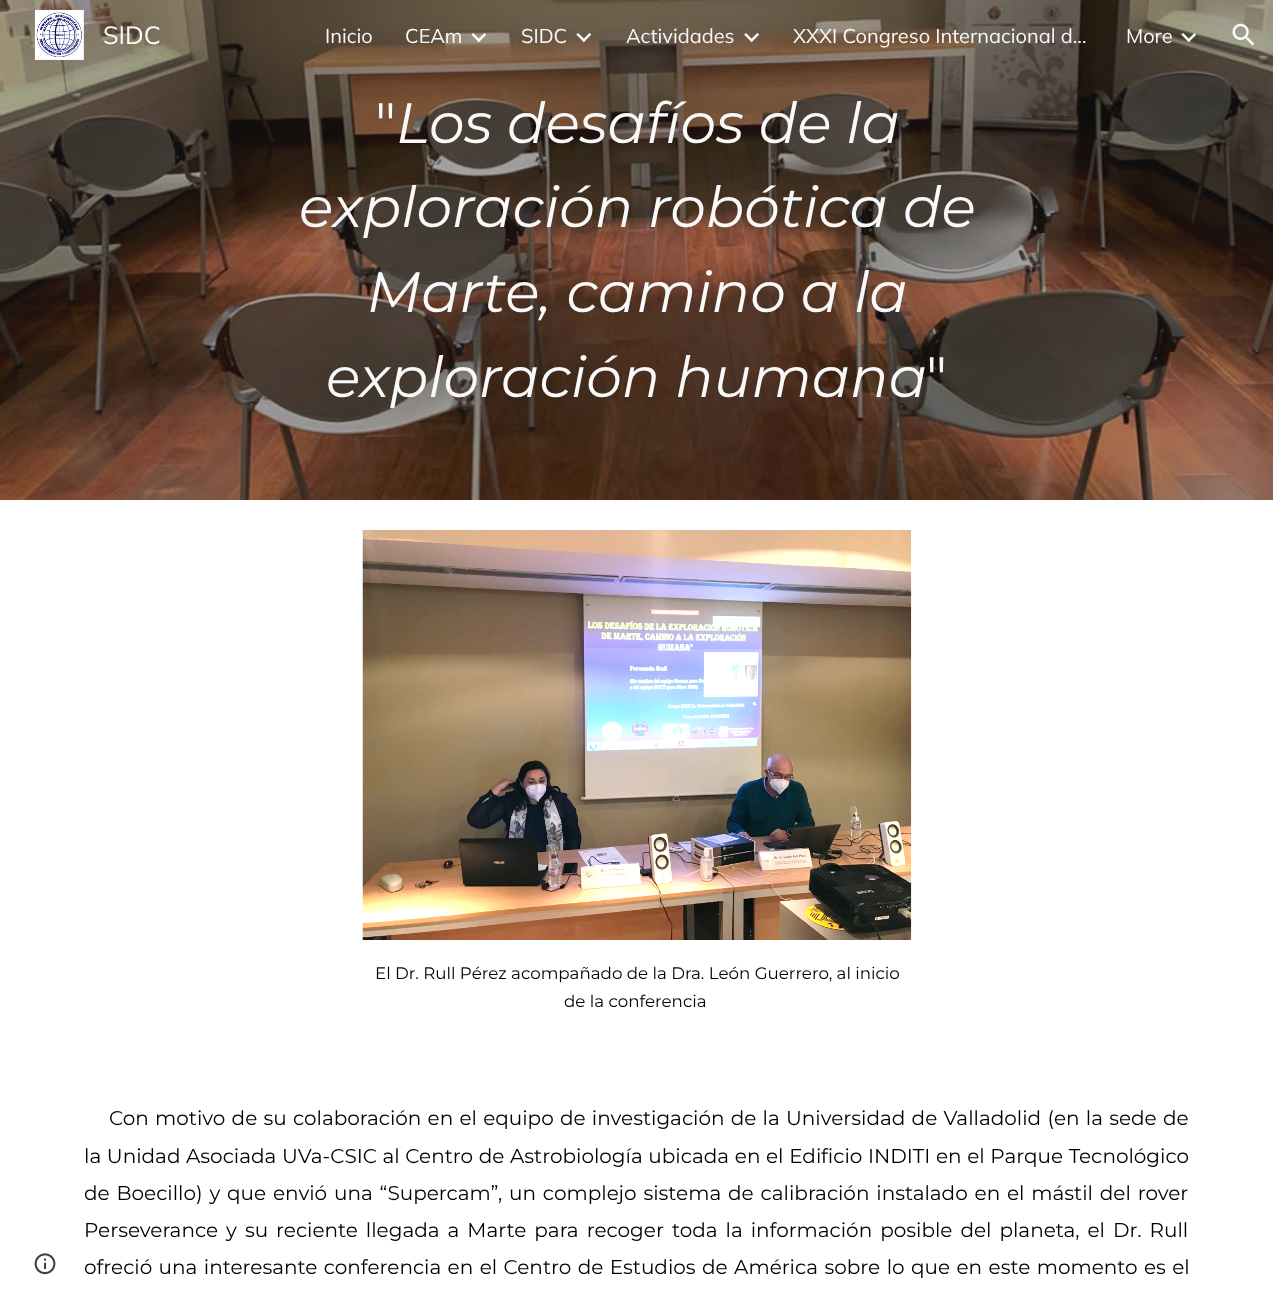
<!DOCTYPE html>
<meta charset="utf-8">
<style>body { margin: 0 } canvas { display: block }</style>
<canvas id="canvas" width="1273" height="1306"></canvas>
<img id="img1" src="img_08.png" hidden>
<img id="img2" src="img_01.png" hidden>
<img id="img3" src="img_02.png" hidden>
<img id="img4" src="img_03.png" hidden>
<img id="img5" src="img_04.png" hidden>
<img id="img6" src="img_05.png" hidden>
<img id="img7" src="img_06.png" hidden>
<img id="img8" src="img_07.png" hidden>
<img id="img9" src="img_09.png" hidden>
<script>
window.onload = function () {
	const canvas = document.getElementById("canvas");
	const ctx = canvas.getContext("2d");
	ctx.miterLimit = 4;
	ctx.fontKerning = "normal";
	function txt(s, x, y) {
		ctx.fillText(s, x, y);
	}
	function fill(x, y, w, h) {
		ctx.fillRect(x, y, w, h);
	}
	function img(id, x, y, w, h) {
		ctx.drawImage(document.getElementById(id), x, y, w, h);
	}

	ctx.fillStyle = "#FFFFFF";
	fill(0, 0, 1273, 1306);
	img("img1", 0, 0, 1273, 500);
	img("img2", 34, 9, 50, 51);
	img("img3", 471, 33, 16, 9);
	img("img4", 576, 33, 16, 9);
	img("img5", 744, 33, 15, 9);
	img("img6", 1181, 33, 16, 9);
	img("img7", 1232, 23, 23, 23);
	img("img8", 34, 1253, 22, 22);
	img("img9", 362, 530, 550, 410);
	ctx.font = "25px Mulish";
	ctx.fillStyle = "#F9F9F9";
	txt("SIDC", 103, 44);
	ctx.font = "20px Mulish";
	txt("Inicio", 325, 43);
	txt("CEAm", 405, 43);
	txt("SIDC", 521, 43);
	txt("Actividades", 626, 43);
	txt("XXXI Congreso Internacional d…", 793, 43);
	txt("More", 1126, 43);
	ctx.font = "56.75px Montserrat";
	txt("\"", 375, 143);
	ctx.font = "italic 56.75px Montserrat";
	txt("Los desafíos de la", 396, 143);
	txt("exploración robótica de", 299, 227);
	txt("Marte, camino a la", 367, 312);
	txt("exploración humana", 326, 397);
	ctx.font = "56.75px Montserrat";
	txt("\"", 926, 397);
	ctx.font = "16.7px Montserrat";
	ctx.fillStyle = "#000000";
	txt("El Dr. Rull Pérez acompañado de la Dra. León Guerrero, al inicio", 375, 979);
	txt("de la conferencia", 564, 1007);
	ctx.wordSpacing = "1px";
	ctx.font = "20px Montserrat";
	txt("Con motivo de su colaboración en el equipo de investigación de la Universidad de Valladolid (en la sede de", 109, 1125);
	ctx.wordSpacing = "0.4px";
	txt("la Unidad Asociada UVa-CSIC al Centro de Astrobiología ubicada en el Edificio INDITI en el Parque Tecnológico", 84, 1163);
	ctx.wordSpacing = "1.6px";
	txt("de Boecillo) y que envió una “Supercam”, un complejo sistema de calibración instalado en el mástil del rover", 84, 1200);
	ctx.wordSpacing = "2.75px";
	txt("Perseverance y su reciente llegada a Marte para recoger toda la información posible del planeta, el Dr. Rull", 84, 1237);
	ctx.wordSpacing = "1.2px";
	txt("ofreció una interesante conferencia en el Centro de Estudios de América sobre lo que en este momento es el", 84, 1274);
};
</script>
